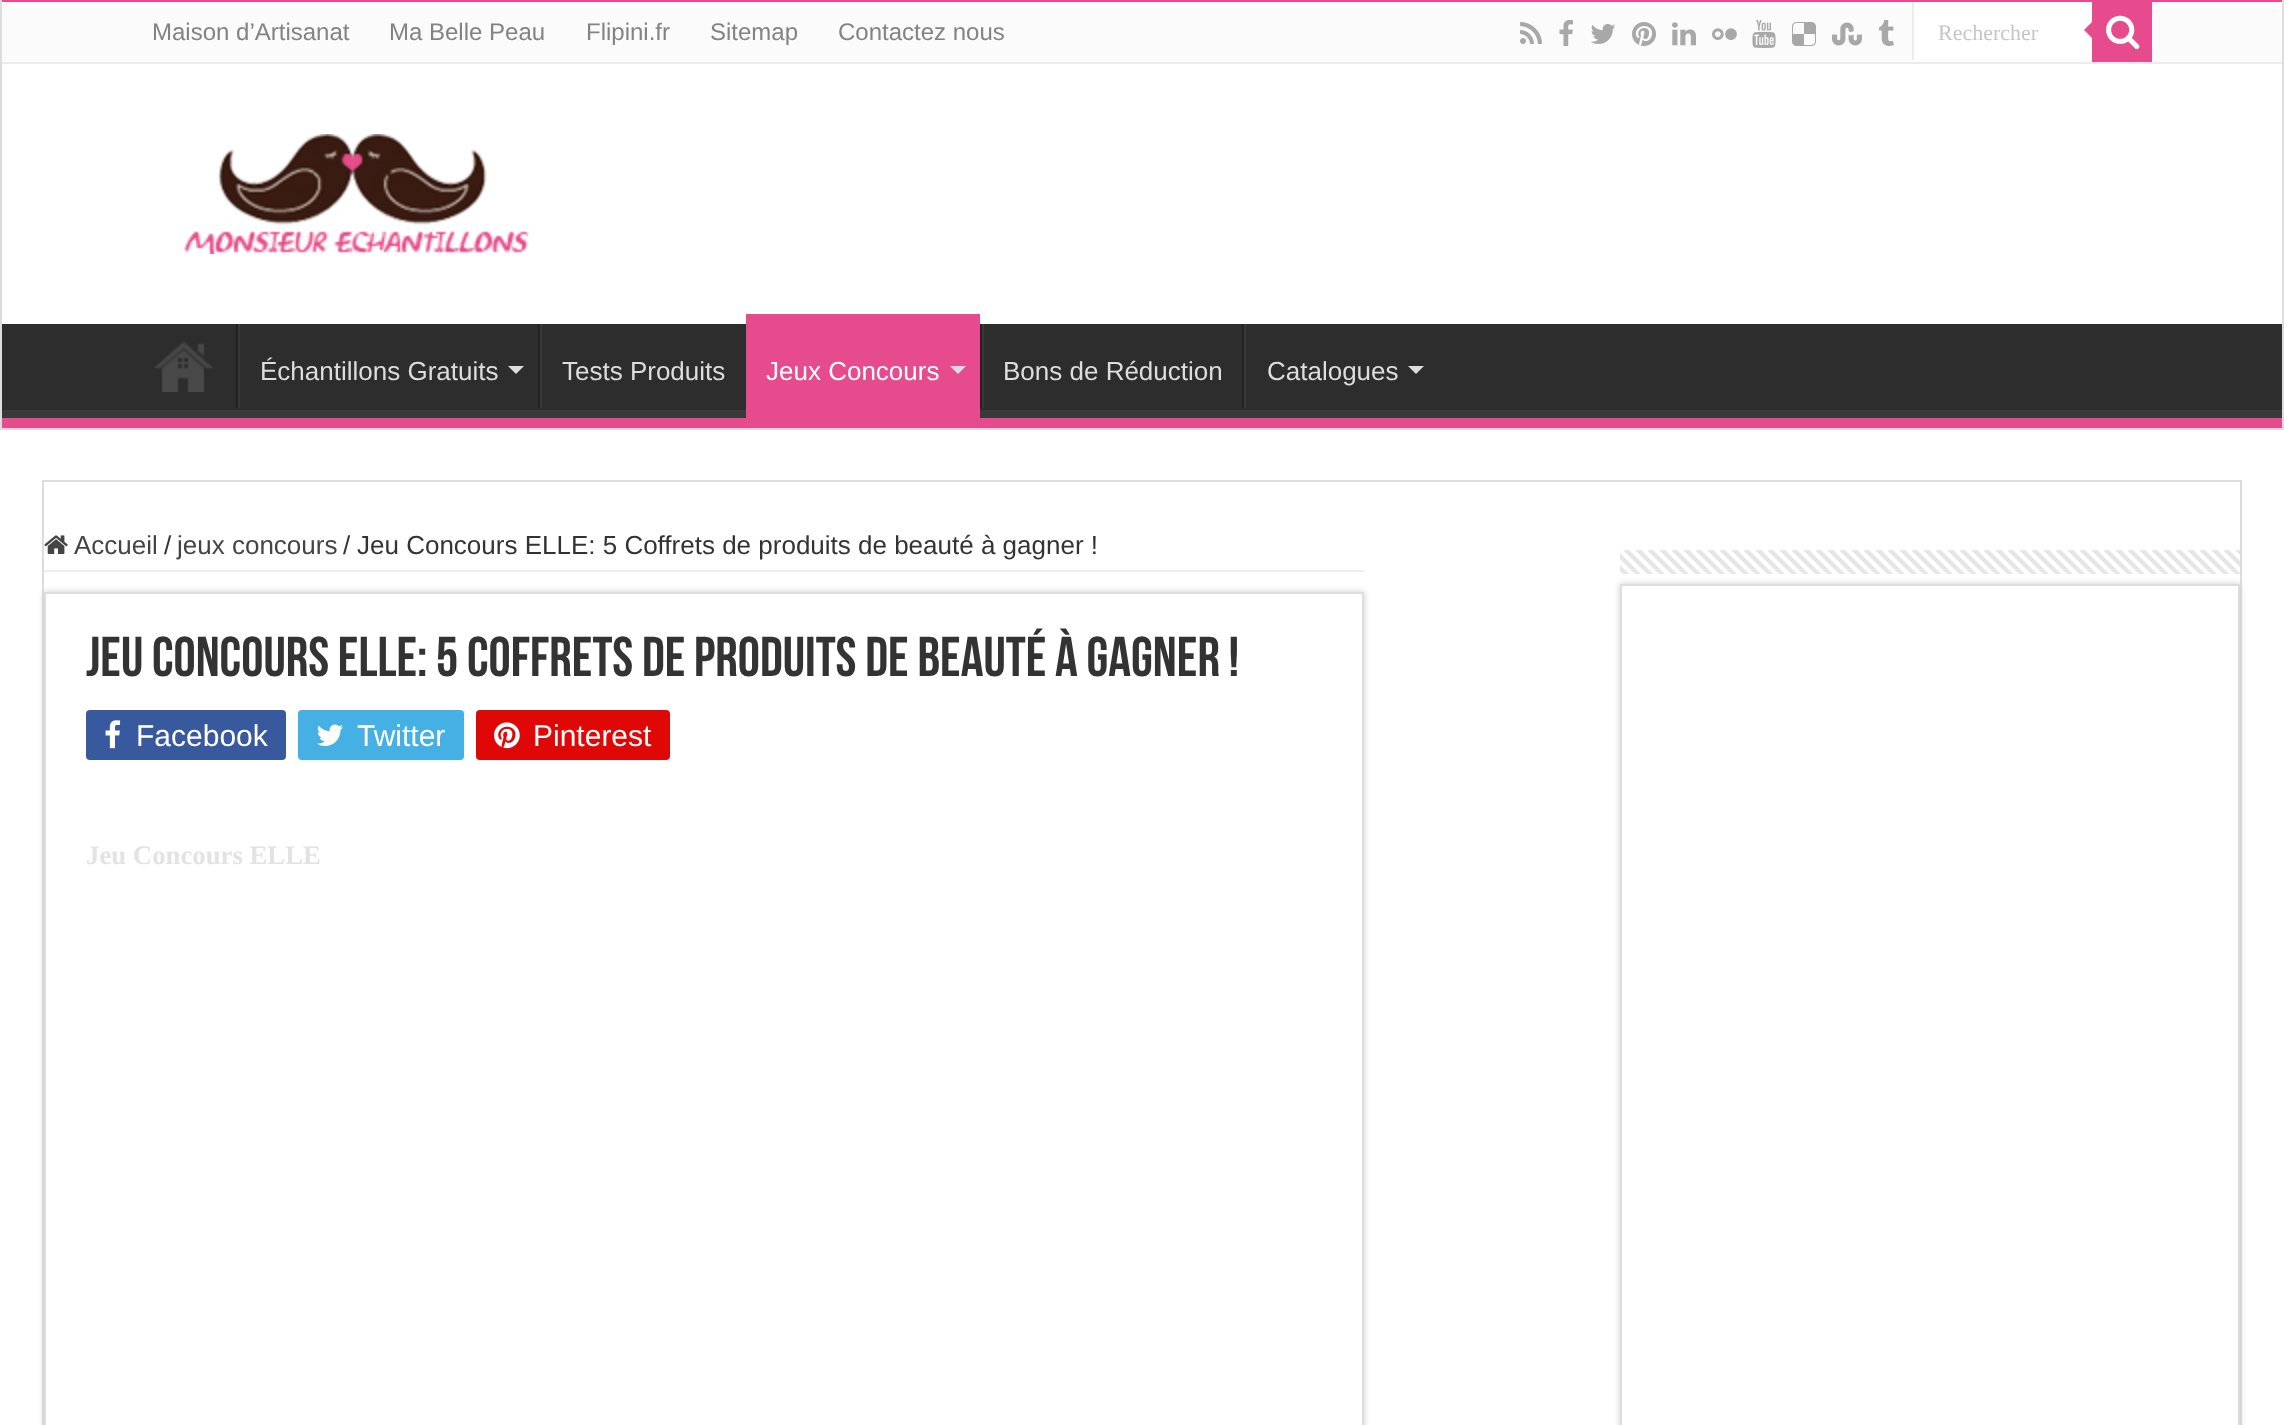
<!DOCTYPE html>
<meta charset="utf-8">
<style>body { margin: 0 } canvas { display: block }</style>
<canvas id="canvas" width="2284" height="1425"></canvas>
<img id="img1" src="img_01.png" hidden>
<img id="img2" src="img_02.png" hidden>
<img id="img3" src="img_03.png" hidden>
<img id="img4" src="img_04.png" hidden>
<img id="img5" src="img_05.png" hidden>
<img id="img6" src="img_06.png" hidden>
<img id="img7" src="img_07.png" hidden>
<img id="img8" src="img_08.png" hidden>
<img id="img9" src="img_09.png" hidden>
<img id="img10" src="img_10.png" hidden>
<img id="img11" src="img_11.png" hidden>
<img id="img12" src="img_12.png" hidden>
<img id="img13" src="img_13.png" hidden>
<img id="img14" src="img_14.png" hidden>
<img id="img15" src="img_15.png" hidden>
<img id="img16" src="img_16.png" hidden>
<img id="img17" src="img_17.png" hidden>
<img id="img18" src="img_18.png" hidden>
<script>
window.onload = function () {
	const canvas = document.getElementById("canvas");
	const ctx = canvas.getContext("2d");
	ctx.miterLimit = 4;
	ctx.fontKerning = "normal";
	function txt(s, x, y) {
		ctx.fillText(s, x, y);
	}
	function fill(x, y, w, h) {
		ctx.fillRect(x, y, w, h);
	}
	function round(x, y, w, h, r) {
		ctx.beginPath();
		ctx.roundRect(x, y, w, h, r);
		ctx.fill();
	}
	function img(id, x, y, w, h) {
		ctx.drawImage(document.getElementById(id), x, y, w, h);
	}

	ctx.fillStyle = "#FFFFFF";
	fill(0, 0, 2284, 1425);
	ctx.fillStyle = "#E64B8E";
	fill(0, 0, 2284, 2);
	ctx.fillStyle = "#DDDDDD";
	fill(2282, 0, 2, 430);
	fill(0, 428, 2284, 2);
	fill(0, 0, 2, 430);
	ctx.fillStyle = "#FBFBFB";
	fill(2, 2, 2280, 60);
	ctx.fillStyle = "#ECECEC";
	fill(2, 62, 2280, 2);
	img("img1", 1520, 22, 22, 22);
	img("img2", 1559, 20, 14, 26);
	img("img3", 1591, 24, 24, 20);
	img("img4", 1632, 22, 24, 24);
	img("img5", 1672, 22, 24, 24);
	img("img6", 1712, 28, 25, 12);
	img("img7", 1752, 20, 24, 28);
	img("img8", 1792, 22, 24, 24);
	img("img9", 1832, 22, 30, 24);
	img("img10", 1879, 20, 15, 26);
	ctx.fillStyle = "#FFFFFF";
	fill(1914, 2, 178, 58);
	ctx.fillStyle = "#ECECEC";
	fill(1912, 2, 2, 58);
	ctx.fillStyle = "#E64B8E";
	fill(2092, 2, 60, 60);
	img("img11", 2106, 15, 34, 35);
	ctx.beginPath();
	ctx.moveTo(2092, 22);
	ctx.lineTo(2092, 38);
	ctx.lineTo(2084, 30);
	ctx.closePath();
	ctx.fill();
	img("img12", 183, 134, 346, 120);
	ctx.fillStyle = "#2D2D2D";
	fill(2, 324, 2280, 86);
	ctx.save();
	ctx.beginPath();
	ctx.rect(2, 324, 2280, 94);
	ctx.clip();
	ctx.fillStyle = "#393939";
	ctx.beginPath();
	ctx.moveTo(-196, 126);
	ctx.lineTo(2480, 126);
	ctx.lineTo(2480, 616);
	ctx.lineTo(-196, 616);
	ctx.closePath();
	ctx.moveTo(0, 312);
	ctx.lineTo(2280, 312);
	ctx.bezierCurveTo(2281, 312, 2282, 313, 2282, 314);
	ctx.lineTo(2282, 408);
	ctx.bezierCurveTo(2282, 409, 2281, 410, 2280, 410);
	ctx.lineTo(0, 410);
	ctx.bezierCurveTo(-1, 410, -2, 409, -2, 408);
	ctx.lineTo(-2, 314);
	ctx.bezierCurveTo(-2, 313, -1, 312, 0, 312);
	ctx.closePath();
	ctx.fill("evenodd");
	ctx.restore();
	ctx.fillStyle = "#E64B8E";
	fill(2, 418, 2280, 10);
	img("img13", 154, 341, 59, 51);
	ctx.fillStyle = "#222222";
	fill(236, 324, 2, 84);
	ctx.fillStyle = "#383838";
	fill(238, 324, 2, 84);
	ctx.fillStyle = "#DDDDDD";
	ctx.beginPath();
	ctx.moveTo(508, 366);
	ctx.lineTo(524, 366);
	ctx.lineTo(516, 374);
	ctx.closePath();
	ctx.fill();
	ctx.fillStyle = "#222222";
	fill(538, 324, 2, 84);
	ctx.fillStyle = "#383838";
	fill(540, 324, 2, 84);
	ctx.fillStyle = "#E64B8E";
	fill(746, 314, 234, 104);
	ctx.fillStyle = "#DDDDDD";
	ctx.beginPath();
	ctx.moveTo(950, 366);
	ctx.lineTo(966, 366);
	ctx.lineTo(958, 374);
	ctx.closePath();
	ctx.fill();
	ctx.fillStyle = "#222222";
	fill(980, 324, 2, 84);
	ctx.fillStyle = "#383838";
	fill(982, 324, 2, 84);
	ctx.fillStyle = "#222222";
	fill(1242, 324, 2, 84);
	ctx.fillStyle = "#383838";
	fill(1244, 324, 2, 84);
	ctx.fillStyle = "#DDDDDD";
	ctx.beginPath();
	ctx.moveTo(1408, 366);
	ctx.lineTo(1424, 366);
	ctx.lineTo(1416, 374);
	ctx.closePath();
	ctx.fill();
	ctx.strokeStyle = "#DDDDDD";
	ctx.lineWidth = 2;
	ctx.strokeRect(43, 481, 2198, 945);
	ctx.fillStyle = "#EEEEEE";
	fill(44, 570, 1320, 2);
	img("img14", 44, 535, 24, 19);
	ctx.save();
	ctx.beginPath();
	ctx.moveTo(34, 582);
	ctx.lineTo(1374, 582);
	ctx.lineTo(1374, 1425);
	ctx.lineTo(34, 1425);
	ctx.closePath();
	ctx.moveTo(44, 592);
	ctx.lineTo(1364, 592);
	ctx.lineTo(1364, 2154);
	ctx.lineTo(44, 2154);
	ctx.closePath();
	ctx.clip("evenodd");
	ctx.fillStyle = "#CACACA";
	ctx.filter = "blur(3px)";
	ctx.beginPath();
	ctx.rect(44, 592, 1320, 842);
	ctx.fill();
	ctx.filter = "none";
	ctx.restore();
	ctx.fillStyle = "#DDDDDD";
	fill(44, 592, 1320, 2);
	fill(1362, 592, 2, 833);
	fill(44, 592, 2, 833);
	ctx.fillStyle = "#39599F";
	round(86, 710, 200, 50, 4);
	img("img15", 105, 720, 16, 29);
	ctx.fillStyle = "#45B0E3";
	round(298, 710, 166, 50, 4);
	img("img16", 317, 724, 26, 22);
	ctx.fillStyle = "#E00707";
	round(476, 710, 194, 50, 4);
	img("img17", 494, 722, 26, 27);
	img("img18", 1620, 550, 620, 24);
	ctx.save();
	ctx.beginPath();
	ctx.moveTo(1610, 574);
	ctx.lineTo(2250, 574);
	ctx.lineTo(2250, 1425);
	ctx.lineTo(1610, 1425);
	ctx.closePath();
	ctx.moveTo(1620, 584);
	ctx.lineTo(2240, 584);
	ctx.lineTo(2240, 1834);
	ctx.lineTo(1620, 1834);
	ctx.closePath();
	ctx.clip("evenodd");
	ctx.fillStyle = "#CACACA";
	ctx.filter = "blur(3px)";
	ctx.beginPath();
	ctx.rect(1620, 584, 620, 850);
	ctx.fill();
	ctx.filter = "none";
	ctx.restore();
	ctx.fillStyle = "#DDDDDD";
	fill(1620, 584, 620, 2);
	fill(2238, 584, 2, 841);
	fill(1620, 584, 2, 841);
	ctx.font = "24px Liberation Sans";
	ctx.fillStyle = "#838383";
	txt("Maison d’Artisanat", 152, 40);
	txt("Ma Belle Peau", 389, 40);
	txt("Flipini.fr", 586, 40);
	txt("Sitemap", 710, 40);
	txt("Contactez nous", 838, 40);
	ctx.font = "22px Liberation Serif";
	ctx.fillStyle = "#C5C5C5";
	txt("Rechercher", 1938, 40);
	ctx.font = "26px Liberation Sans";
	ctx.fillStyle = "#DDDDDD";
	txt("Échantillons Gratuits", 260, 380);
	txt("Tests Produits", 562, 380);
	ctx.fillStyle = "#FFFFFF";
	txt("Jeux Concours", 766, 380);
	ctx.fillStyle = "#DDDDDD";
	txt("Bons de Réduction", 1003, 380);
	txt("Catalogues", 1267, 380);
	ctx.fillStyle = "#444444";
	txt("Accueil", 74, 554);
	ctx.fillStyle = "#333333";
	txt("/", 164, 554);
	ctx.fillStyle = "#444444";
	txt("jeux concours", 177, 554);
	ctx.fillStyle = "#333333";
	txt("/", 343, 554);
	txt("Jeu Concours ELLE: 5 Coffrets de produits de beauté à gagner !", 357, 554);
	ctx.font = "bold 56px Bebas Neue";
	txt("Jeu Concours ELLE: 5 Coffrets de produits de beauté à gagner !", 86, 676);
	ctx.font = "30px Liberation Sans";
	ctx.fillStyle = "#FFFFFF";
	txt("Facebook", 136, 746);
	txt("Twitter", 357, 746);
	txt("Pinterest", 533, 746);
	ctx.font = "bold 26.75px Liberation Serif";
	ctx.fillStyle = "#E3E3E3";
	txt("Jeu Concours ELLE", 86, 864);
};
</script>
